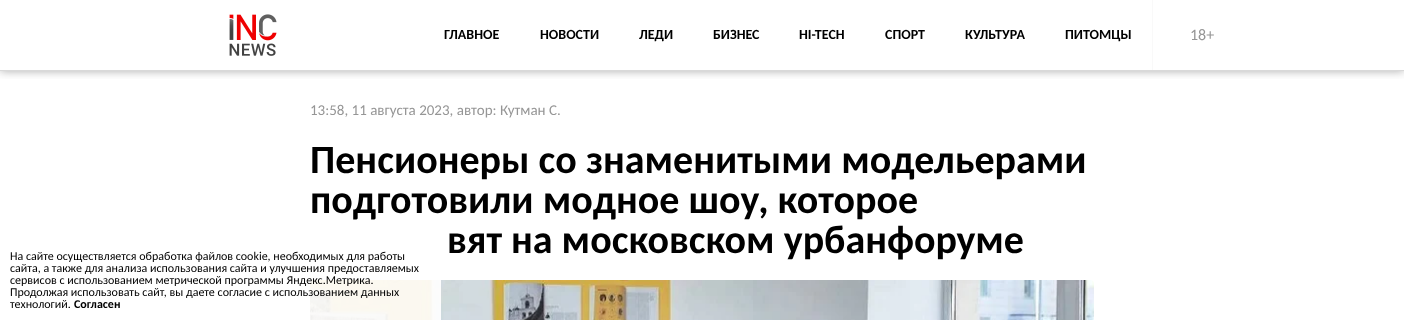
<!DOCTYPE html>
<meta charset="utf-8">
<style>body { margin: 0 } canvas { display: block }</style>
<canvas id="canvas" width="1404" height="320"></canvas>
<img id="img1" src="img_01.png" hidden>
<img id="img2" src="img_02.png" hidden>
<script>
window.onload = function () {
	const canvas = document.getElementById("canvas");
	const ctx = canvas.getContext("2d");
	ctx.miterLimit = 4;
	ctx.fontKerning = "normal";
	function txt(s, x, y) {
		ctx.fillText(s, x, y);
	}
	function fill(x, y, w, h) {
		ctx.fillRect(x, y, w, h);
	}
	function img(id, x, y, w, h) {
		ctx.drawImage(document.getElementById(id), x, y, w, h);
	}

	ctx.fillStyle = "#FFFFFF";
	fill(0, 0, 1404, 320);
	ctx.save();
	ctx.beginPath();
	ctx.rect(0, 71, 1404, 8);
	ctx.clip();
	ctx.fillStyle = "rgba(0, 0, 0, 0.33)";
	ctx.filter = "blur(5px)";
	ctx.beginPath();
	ctx.rect(0, 0, 1404, 71);
	ctx.fill();
	ctx.filter = "none";
	ctx.restore();
	ctx.fillStyle = "#D9D9D9";
	fill(0, 70, 1404, 1);
	img("img1", 229, 14, 48, 42);
	ctx.fillStyle = "#F9F9F9";
	fill(1152, 0, 1, 70);
	img("img2", 310, 280, 784, 40);
	ctx.fillStyle = "rgba(255, 255, 255, 0.92)";
	fill(310, 280, 131, 40);
	ctx.font = "bold 14px Carlito";
	ctx.fillStyle = "#000000";
	txt("ГЛАВНОЕ", 444, 39);
	txt("НОВОСТИ", 540, 39);
	txt("ЛЕДИ", 639, 39);
	txt("БИЗНЕС", 713, 39);
	txt("HI-TECH", 799, 39);
	txt("СПОРТ", 885, 39);
	txt("КУЛЬТУРА", 965, 39);
	txt("ПИТОМЦЫ", 1065, 39);
	ctx.font = "16px Carlito";
	ctx.fillStyle = "#969696";
	txt("18+", 1190, 40);
	ctx.font = "15px Carlito";
	txt("13:58, 11 августа 2023, автор: Кутман С.", 310, 115);
	ctx.font = "bold 40px Carlito";
	ctx.fillStyle = "#000000";
	txt("Пенсионеры со знаменитыми модельерами", 310, 173);
	txt("подготовили модное шоу, которое", 310, 213);
	txt("вят на московском урбанфоруме", 447, 253);
	ctx.font = "12px Carlito";
	txt("На сайте осуществляется обработка файлов cookie, необходимых для работы", 10, 260);
	txt("сайта, а также для анализа использования сайта и улучшения предоставляемых", 10, 272);
	txt("сервисов с использованием метрической программы Яндекс.Метрика.", 10, 284);
	txt("Продолжая использовать сайт, вы даете согласие с использованием данных", 10, 296);
	txt("технологий.", 10, 308);
	ctx.font = "bold 12px Carlito";
	txt("Согласен", 74, 308);
};
</script>
